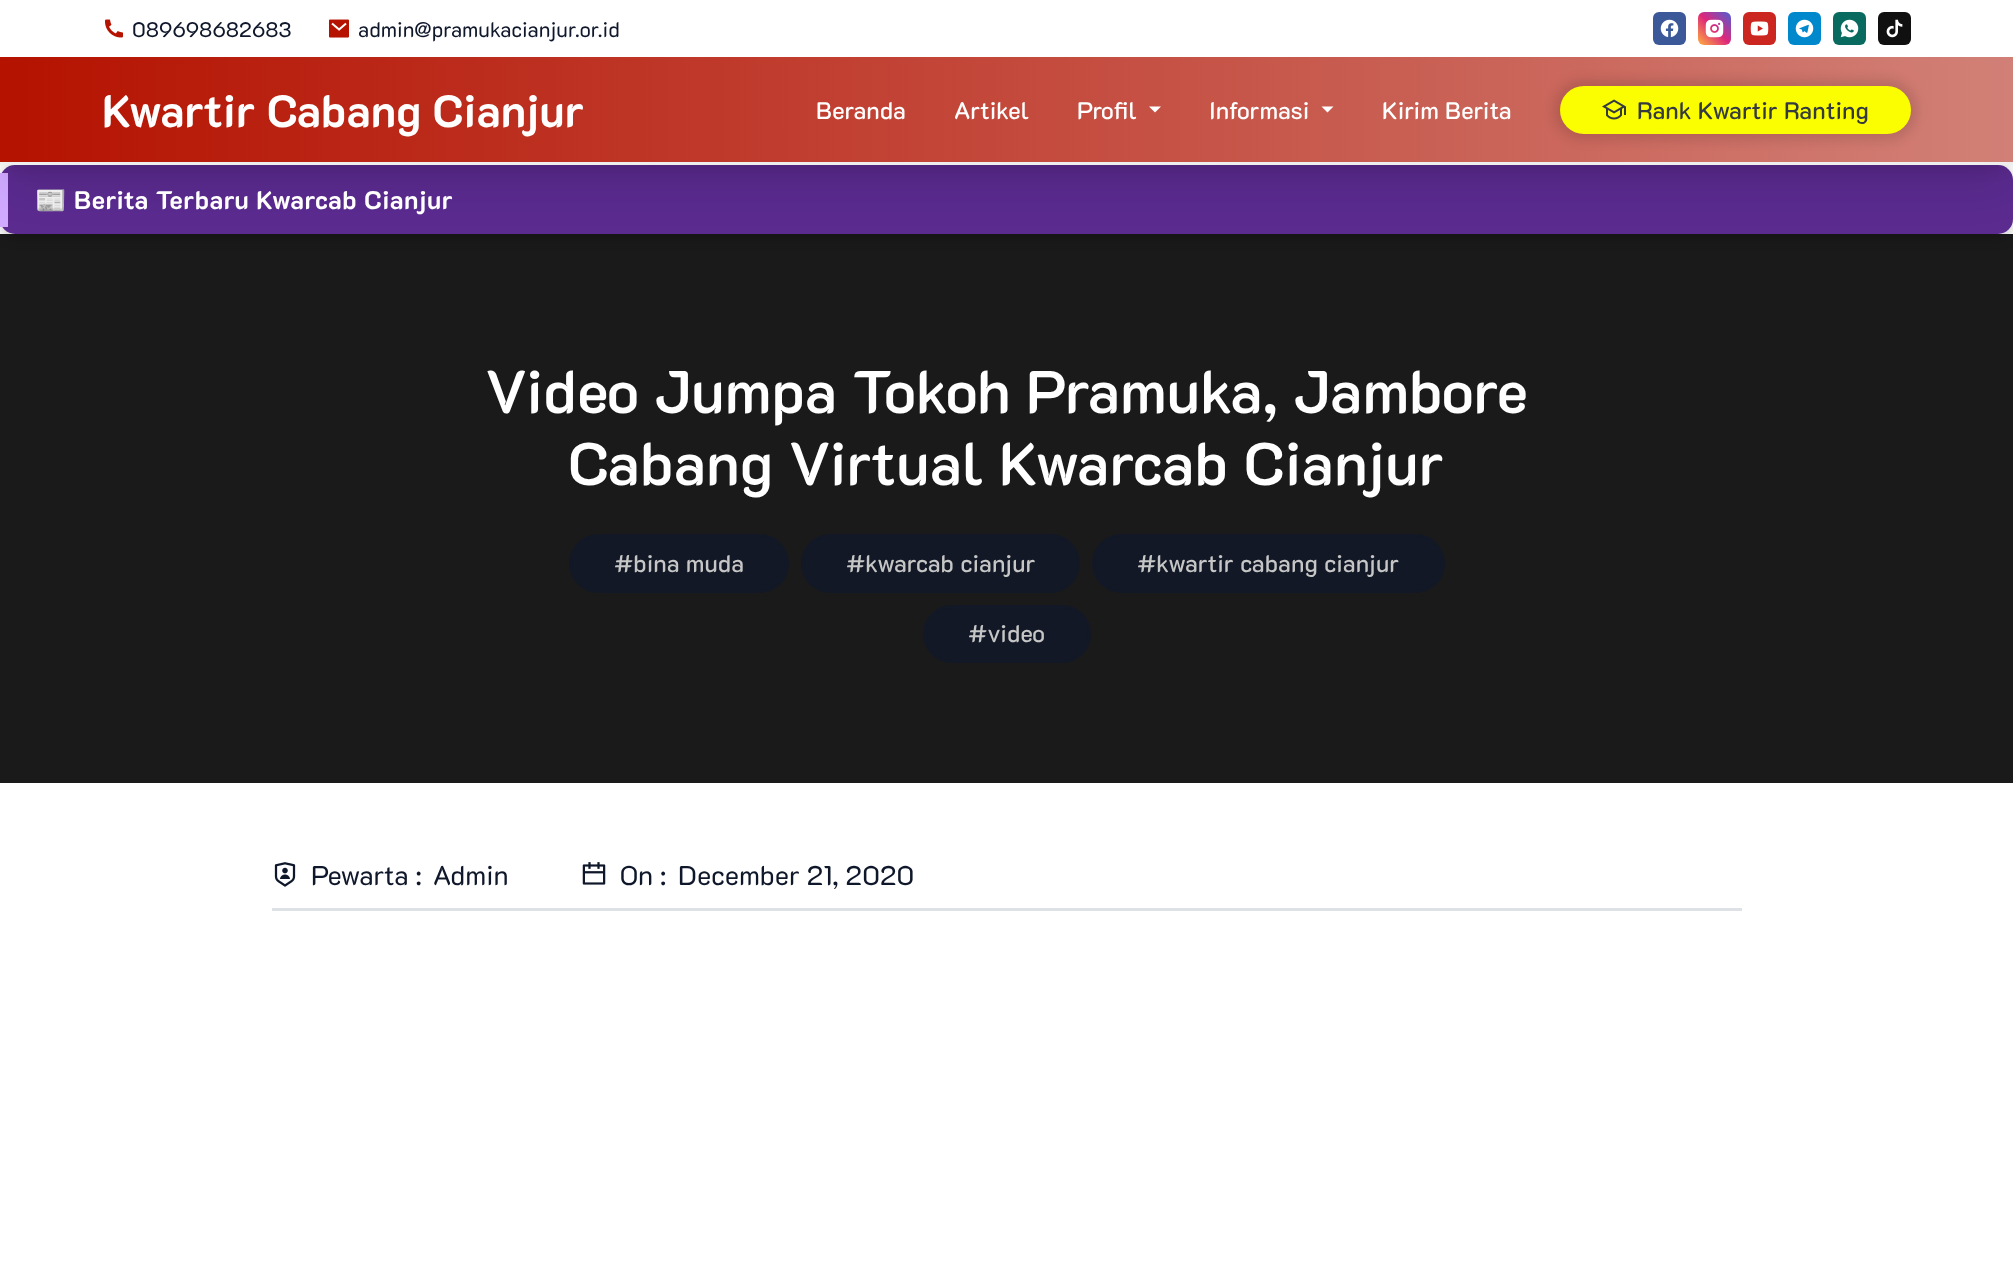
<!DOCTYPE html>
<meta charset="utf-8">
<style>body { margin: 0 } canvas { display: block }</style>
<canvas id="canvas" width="2013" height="1272"></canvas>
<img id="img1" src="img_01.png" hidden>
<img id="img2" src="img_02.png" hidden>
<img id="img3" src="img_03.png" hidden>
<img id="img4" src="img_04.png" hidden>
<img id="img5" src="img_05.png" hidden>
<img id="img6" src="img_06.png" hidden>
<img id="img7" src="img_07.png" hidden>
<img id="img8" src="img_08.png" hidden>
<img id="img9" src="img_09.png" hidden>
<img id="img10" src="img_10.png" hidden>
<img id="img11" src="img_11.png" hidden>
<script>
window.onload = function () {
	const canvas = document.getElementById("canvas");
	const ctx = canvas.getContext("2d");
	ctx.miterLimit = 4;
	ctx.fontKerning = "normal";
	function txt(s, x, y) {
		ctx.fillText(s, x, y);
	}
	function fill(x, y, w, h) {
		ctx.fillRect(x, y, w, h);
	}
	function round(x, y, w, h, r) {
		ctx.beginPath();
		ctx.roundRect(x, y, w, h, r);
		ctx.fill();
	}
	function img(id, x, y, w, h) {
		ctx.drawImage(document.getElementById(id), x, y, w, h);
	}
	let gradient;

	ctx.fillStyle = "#FFFFFF";
	fill(0, 0, 2013, 1272);
	img("img1", 105, 19, 18, 19);
	img("img2", 329, 19, 20, 19);
	ctx.fillStyle = "#3B5998";
	round(1653, 12, 33, 33, 6);
	img("img3", 1660, 19, 19, 19);
	gradient = ctx.createLinearGradient(1698, 45, 1731, 12);
	gradient.addColorStop(0, "#FFB13D");
	gradient.addColorStop(0.5, "#DD277B");
	gradient.addColorStop(1, "#4D5ED4");
	ctx.fillStyle = gradient;
	round(1698, 12, 33, 33, 6);
	img("img4", 1705, 19, 19, 19);
	ctx.fillStyle = "#CC2620";
	round(1743, 12, 33, 33, 6);
	img("img5", 1750, 21, 19, 15);
	ctx.fillStyle = "#0088CC";
	round(1788, 12, 33, 33, 6);
	img("img6", 1795, 19, 19, 19);
	ctx.fillStyle = "#096B60";
	round(1833, 12, 33, 33, 6);
	img("img7", 1840, 19, 19, 19);
	ctx.fillStyle = "#101010";
	round(1878, 12, 33, 33, 6);
	img("img8", 1886, 19, 17, 19);
	ctx.fillStyle = "#1A1A1A";
	fill(0, 234, 2013, 549);
	ctx.fillStyle = "rgba(0, 0, 0, 0.2)";
	ctx.filter = "blur(6px)";
	ctx.beginPath();
	ctx.roundRect(0, 170, 2013, 69, 15);
	ctx.fill();
	ctx.filter = "none";
	ctx.fillStyle = "#5B2B90";
	round(0, 165, 2013, 69, 15);
	ctx.fillStyle = "#D1AAFF";
	fill(0, 173, 8, 54);
	ctx.fillStyle = "rgba(0, 0, 0, 0.1)";
	ctx.filter = "blur(7.5px)";
	ctx.beginPath();
	ctx.rect(9, 78, 1995, 90);
	ctx.fill();
	ctx.filter = "none";
	ctx.filter = "blur(19px)";
	ctx.beginPath();
	ctx.rect(8, 95, 1998, 93);
	ctx.fill();
	ctx.filter = "none";
	gradient = ctx.createLinearGradient(0, 110, 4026, 109);
	gradient.addColorStop(0, "#B51200");
	gradient.addColorStop(1, "#EEEEEE");
	ctx.fillStyle = gradient;
	fill(0, 57, 2013, 105);
	ctx.fillStyle = "#EEEEEE";
	fill(0, 162, 2013, 3);
	ctx.fillStyle = "#FFFFFF";
	ctx.beginPath();
	ctx.moveTo(1149, 106.5);
	ctx.lineTo(1161, 106.5);
	ctx.lineTo(1155, 112.5);
	ctx.closePath();
	ctx.fill();
	ctx.beginPath();
	ctx.moveTo(1321.5, 106.5);
	ctx.lineTo(1333.5, 106.5);
	ctx.lineTo(1327.5, 112.5);
	ctx.closePath();
	ctx.fill();
	ctx.fillStyle = "rgba(0, 0, 0, 0.12)";
	ctx.filter = "blur(6px)";
	ctx.beginPath();
	ctx.roundRect(1554, 80, 363, 60, 30);
	ctx.fill();
	ctx.filter = "none";
	ctx.fillStyle = "#FAFE00";
	round(1560, 86, 351, 48, 24);
	img("img9", 1602, 99, 24, 21);
	ctx.fillStyle = "#121826";
	ctx.beginPath();
	ctx.roundRect(570.5, 535.5, 217, 56, 28);
	ctx.fill();
	ctx.strokeStyle = "#121826";
	ctx.lineWidth = 3;
	ctx.stroke();
	ctx.beginPath();
	ctx.roundRect(802.5, 535.5, 276, 56, 28);
	ctx.fill();
	ctx.stroke();
	ctx.beginPath();
	ctx.roundRect(1093.5, 535.5, 350, 56, 28);
	ctx.fill();
	ctx.stroke();
	ctx.beginPath();
	ctx.roundRect(924.5, 606.5, 165, 55, 27.5);
	ctx.fill();
	ctx.stroke();
	ctx.fillStyle = "#DEE2E6";
	fill(272, 908, 1470, 3);
	img("img10", 274, 862, 22, 25);
	img("img11", 582, 862, 24, 23);
	ctx.font = "21px 'K2D'";
	ctx.fillStyle = "#0F172A";
	txt("089698682683", 132, 37);
	txt("admin@pramukacianjur.or.id", 358, 37);
	ctx.font = "bold 45px 'K2D'";
	ctx.fillStyle = "#FFFFFF";
	txt("Kwartir Cabang Cianjur", 102, 127);
	ctx.font = "500 24px 'K2D'";
	txt("Beranda", 816, 119);
	txt("Artikel", 954, 119);
	txt("Profil", 1077, 119);
	txt("Informasi", 1209, 119);
	txt("Kirim Berita", 1382, 119);
	ctx.fillStyle = "#343A40";
	txt("Rank Kwartir Ranting", 1637, 119);
	ctx.letterSpacing = "0.45px";
	ctx.font = "bold 25.5px Noto Color Emoji";
	ctx.fillStyle = "#FFFFFF";
	txt("📰", 35, 209);
	ctx.font = "bold 25.5px 'K2D'";
	txt("Berita Terbaru Kwarcab Cianjur", 74, 209);
	ctx.letterSpacing = "0px";
	ctx.font = "600 60px 'K2D'";
	txt("Video Jumpa Tokoh Pramuka, Jambore", 485, 413);
	txt("Cabang Virtual Kwarcab Cianjur", 568, 485);
	ctx.font = "500 24px 'K2D'";
	ctx.fillStyle = "#C6C6C6";
	txt("#bina muda", 614, 572);
	txt("#kwarcab cianjur", 846, 572);
	txt("#kwartir cabang cianjur", 1137, 572);
	txt("#video", 968, 642);
	ctx.font = "27px 'K2D'";
	ctx.fillStyle = "#0F172A";
	txt("Pewarta :", 311, 885);
	txt("Admin", 433, 885);
	txt("On :", 620, 885);
	txt("December 21, 2020", 678, 885);
};
</script>
